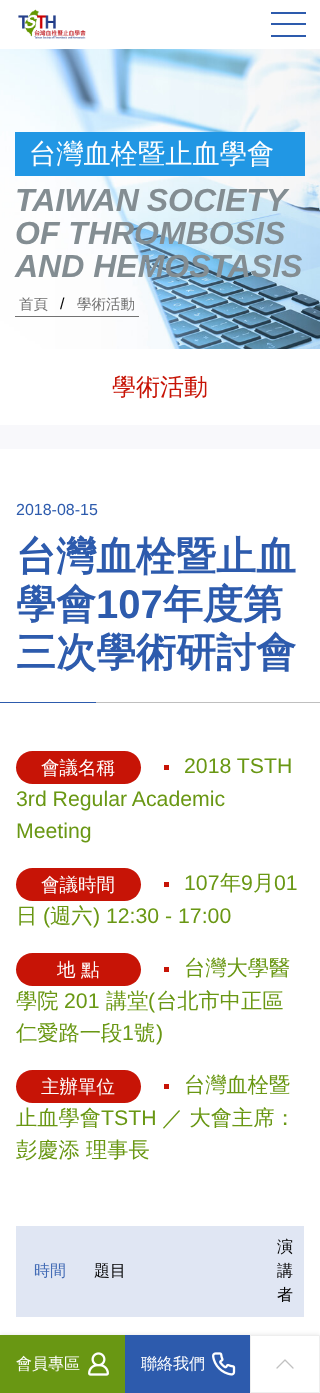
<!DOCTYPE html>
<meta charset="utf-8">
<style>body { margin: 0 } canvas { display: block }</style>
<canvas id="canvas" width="320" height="1393"></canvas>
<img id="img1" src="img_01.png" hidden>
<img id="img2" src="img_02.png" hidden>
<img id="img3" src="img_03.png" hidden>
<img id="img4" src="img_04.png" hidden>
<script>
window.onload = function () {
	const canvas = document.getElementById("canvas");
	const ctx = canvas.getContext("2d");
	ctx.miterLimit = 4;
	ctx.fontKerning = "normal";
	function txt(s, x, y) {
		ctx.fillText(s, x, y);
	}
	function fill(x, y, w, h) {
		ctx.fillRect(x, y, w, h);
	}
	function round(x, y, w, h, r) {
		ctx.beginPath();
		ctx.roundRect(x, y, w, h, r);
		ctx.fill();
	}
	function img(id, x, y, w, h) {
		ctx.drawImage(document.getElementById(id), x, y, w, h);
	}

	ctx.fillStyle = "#FFFFFF";
	fill(0, 0, 320, 1393);
	img("img1", 18, 9, 68, 30);
	ctx.fillStyle = "#2D5BAD";
	fill(271, 12, 35, 2);
	fill(271, 23, 35, 2);
	fill(271, 35, 35, 2);
	img("img2", 0, 49, 320, 300);
	ctx.fillStyle = "#2197E4";
	fill(15, 132, 290, 44);
	ctx.fillStyle = "#727272";
	fill(15, 316, 124, 1);
	ctx.fillStyle = "#F8F8FB";
	fill(0, 425, 320, 24);
	ctx.fillStyle = "#BFBFBF";
	fill(96, 702, 224, 1);
	ctx.fillStyle = "#2D5BAD";
	fill(0, 702, 96, 1);
	ctx.fillStyle = "#C71406";
	round(16, 751, 125, 33, 16.5);
	fill(164, 765, 5, 5);
	round(16, 868, 125, 33, 16.5);
	fill(164, 882, 5, 5);
	round(16, 953, 125, 33, 16.5);
	fill(164, 967, 5, 5);
	round(16, 1070, 125, 33, 16.5);
	fill(164, 1084, 5, 5);
	ctx.fillStyle = "#E0E6F3";
	fill(16, 1226, 288, 91);
	ctx.fillStyle = "rgba(0, 0, 0, 0.1)";
	ctx.filter = "blur(2.5px)";
	ctx.beginPath();
	ctx.rect(0, 1335, 320, 58);
	ctx.fill();
	ctx.filter = "none";
	ctx.fillStyle = "#699713";
	fill(0, 1335, 125, 58);
	img("img3", 88, 1352, 21, 24);
	ctx.fillStyle = "#2D5BAD";
	fill(125, 1335, 125, 58);
	img("img4", 212, 1352, 24, 24);
	ctx.fillStyle = "#FFFFFF";
	ctx.beginPath();
	ctx.rect(250.5, 1335.5, 69, 57);
	ctx.fill();
	ctx.strokeStyle = "#EEEEEE";
	ctx.stroke();
	ctx.beginPath();
	ctx.moveTo(277, 1368);
	ctx.lineTo(285, 1360);
	ctx.lineTo(293, 1368);
	ctx.strokeStyle = "#C1C1C1";
	ctx.lineWidth = 1.3;
	ctx.lineCap = "round";
	ctx.lineJoin = "round";
	ctx.stroke();
	ctx.font = "500 27.25px WenQuanYi Zen Hei";
	txt("台灣血栓暨止血學會", 29, 163);
	ctx.wordSpacing = "-1px";
	ctx.font = "italic bold 32px Liberation Sans";
	ctx.fillStyle = "#838D92";
	txt("TAIWAN SOCIETY", 15, 211);
	ctx.wordSpacing = "0px";
	txt("OF THROMBOSIS", 15, 244);
	txt("AND HEMOSTASIS", 15, 277);
	ctx.font = "500 14.5px WenQuanYi Zen Hei";
	ctx.fillStyle = "#727272";
	txt("首頁", 19, 309);
	ctx.font = "16px Liberation Sans";
	ctx.fillStyle = "#000000";
	txt("/", 60, 309);
	ctx.font = "500 14.5px WenQuanYi Zen Hei";
	ctx.fillStyle = "#727272";
	txt("學術活動", 77, 309);
	ctx.font = "500 24px WenQuanYi Zen Hei";
	ctx.fillStyle = "#C71406";
	txt("學術活動", 112, 395);
	ctx.font = "16px Liberation Sans";
	ctx.fillStyle = "#2D5BAD";
	txt("2018-08-15", 16, 515);
	ctx.font = "bold 40px WenQuanYi Zen Hei";
	txt("台灣血栓暨止血", 16, 570);
	txt("學會", 16, 618);
	ctx.font = "bold 40px Liberation Sans";
	txt("107", 96, 618);
	ctx.font = "bold 40px WenQuanYi Zen Hei";
	txt("年度第", 163, 618);
	txt("三次學術研討會", 16, 666);
	ctx.font = "500 18.5px WenQuanYi Zen Hei";
	ctx.fillStyle = "#FFFFFF";
	txt("會議名稱", 41, 774);
	ctx.font = "21.25px Liberation Sans";
	ctx.fillStyle = "#699713";
	txt("2018 TSTH", 184, 773);
	txt("3rd Regular Academic", 16, 806);
	txt("Meeting", 16, 838);
	ctx.font = "500 18.5px WenQuanYi Zen Hei";
	ctx.fillStyle = "#FFFFFF";
	txt("會議時間", 41, 891);
	ctx.font = "21.25px Liberation Sans";
	ctx.fillStyle = "#699713";
	txt("107", 184, 890);
	ctx.font = "500 21.25px WenQuanYi Zen Hei";
	txt("年", 220, 890);
	ctx.font = "21.25px Liberation Sans";
	txt("9", 241, 890);
	ctx.font = "500 21.25px WenQuanYi Zen Hei";
	txt("月", 253, 890);
	ctx.font = "21.25px Liberation Sans";
	txt("01", 274, 890);
	ctx.font = "500 21.25px WenQuanYi Zen Hei";
	txt("日", 16, 923);
	ctx.font = "21.25px Liberation Sans";
	txt("(", 43, 923);
	ctx.font = "500 21.25px WenQuanYi Zen Hei";
	txt("週六", 50, 923);
	ctx.font = "21.25px Liberation Sans";
	txt(") 12:30 - 17:00", 93, 923);
	ctx.font = "500 18.5px WenQuanYi Zen Hei";
	ctx.fillStyle = "#FFFFFF";
	txt("地 點", 57, 976);
	ctx.font = "500 21.25px WenQuanYi Zen Hei";
	ctx.fillStyle = "#699713";
	txt("台灣大學醫", 184, 975);
	txt("學院", 16, 1008);
	ctx.font = "21.25px Liberation Sans";
	txt("201", 64, 1008);
	ctx.font = "500 21.25px WenQuanYi Zen Hei";
	txt("講堂", 106, 1008);
	ctx.font = "21.25px Liberation Sans";
	txt("(", 148, 1008);
	ctx.font = "500 21.25px WenQuanYi Zen Hei";
	txt("台北市中正區", 156, 1008);
	txt("仁愛路一段", 16, 1040);
	ctx.font = "21.25px Liberation Sans";
	txt("1", 122, 1040);
	ctx.font = "500 21.25px WenQuanYi Zen Hei";
	txt("號", 134, 1040);
	ctx.font = "21.25px Liberation Sans";
	txt(")", 156, 1040);
	ctx.font = "500 18.5px WenQuanYi Zen Hei";
	ctx.fillStyle = "#FFFFFF";
	txt("主辦單位", 41, 1093);
	ctx.font = "500 21.25px WenQuanYi Zen Hei";
	ctx.fillStyle = "#699713";
	txt("台灣血栓暨", 184, 1092);
	txt("止血學會", 16, 1125);
	ctx.font = "21.25px Liberation Sans";
	txt("TSTH", 101, 1125);
	ctx.font = "500 21.25px WenQuanYi Zen Hei";
	txt("／ 大會主席：", 162, 1125);
	txt("彭慶添 理事長", 16, 1157);
	ctx.font = "500 16px WenQuanYi Zen Hei";
	ctx.fillStyle = "#426BB5";
	txt("時間", 34, 1276);
	ctx.fillStyle = "#000000";
	txt("題目", 94, 1276);
	txt("演", 277, 1252);
	txt("講", 277, 1276);
	txt("者", 277, 1300);
	ctx.fillStyle = "#FFFFFF";
	txt("會員專區", 16, 1369);
	txt("聯絡我們", 141, 1369);
};
</script>
